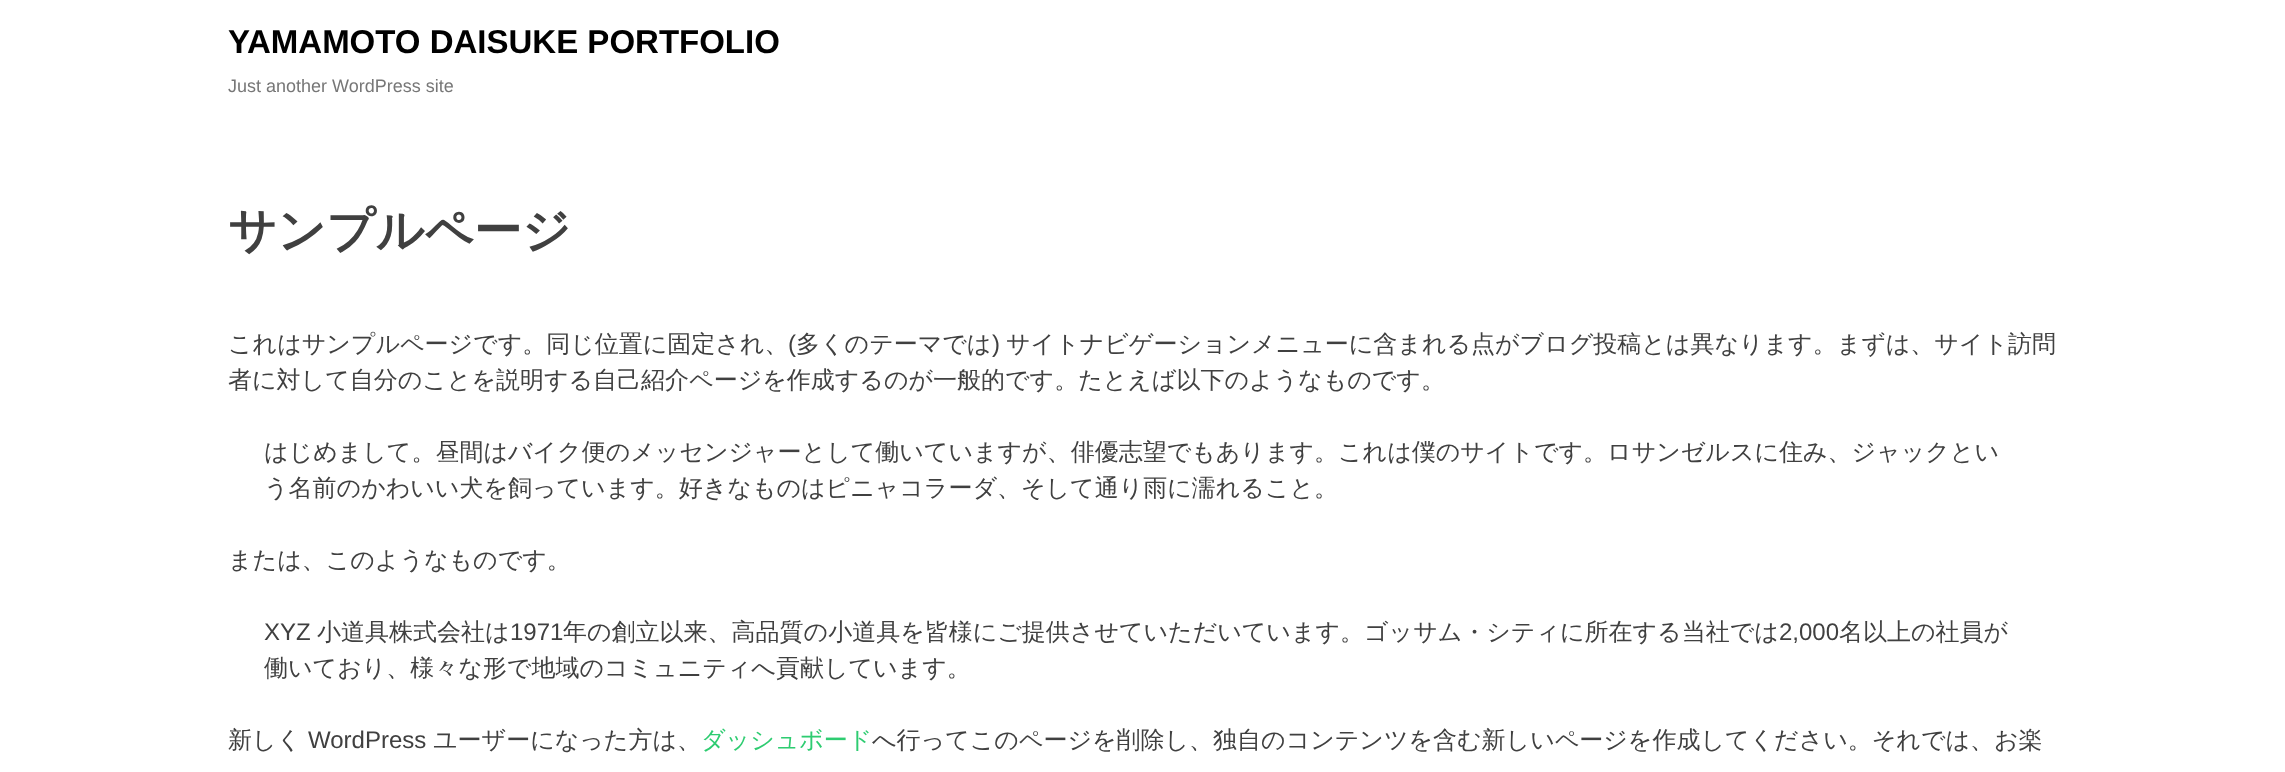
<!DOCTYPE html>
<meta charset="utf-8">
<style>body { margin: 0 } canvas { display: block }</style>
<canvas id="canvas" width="2285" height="772"></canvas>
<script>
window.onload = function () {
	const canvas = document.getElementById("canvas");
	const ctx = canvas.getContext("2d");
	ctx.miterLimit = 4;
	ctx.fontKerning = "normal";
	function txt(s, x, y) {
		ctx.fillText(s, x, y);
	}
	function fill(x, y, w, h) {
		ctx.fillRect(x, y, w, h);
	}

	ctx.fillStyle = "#FFFFFF";
	fill(0, 0, 2285, 772);
	ctx.font = "bold 33px Liberation Sans";
	ctx.fillStyle = "#000000";
	txt("YAMAMOTO DAISUKE PORTFOLIO", 228, 53);
	ctx.font = "18px Liberation Sans";
	ctx.fillStyle = "#777777";
	txt("Just another WordPress site", 228, 92);
	ctx.font = "bold 48px WenQuanYi Zen Hei";
	ctx.fillStyle = "#404040";
	txt("サンプルページ", 228, 247);
	ctx.font = "500 24px WenQuanYi Zen Hei";
	txt("これはサンプルページです。同じ位置に固定され、", 228, 352);
	ctx.font = "24px Liberation Sans";
	txt("(", 788, 352);
	ctx.font = "500 24px WenQuanYi Zen Hei";
	txt("多くのテーマでは", 796, 352);
	ctx.font = "24px Liberation Sans";
	txt(")", 992, 352);
	ctx.font = "500 24px WenQuanYi Zen Hei";
	txt("サイトナビゲーションメニューに含まれる点がブログ投稿とは異なります。まずは、サイト訪問", 1006, 352);
	txt("者に対して自分のことを説明する自己紹介ページを作成するのが一般的です。たとえば以下のようなものです。", 228, 388);
	txt("はじめまして。昼間はバイク便のメッセンジャーとして働いていますが、俳優志望でもあります。これは僕のサイトです。ロサンゼルスに住み、ジャックとい", 264, 460);
	txt("う名前のかわいい犬を飼っています。好きなものはピニャコラーダ、そして通り雨に濡れること。", 264, 496);
	txt("または、このようなものです。", 228, 568);
	ctx.font = "24px Liberation Sans";
	txt("XYZ", 264, 640);
	ctx.font = "500 24px WenQuanYi Zen Hei";
	txt("小道具株式会社は", 317, 640);
	ctx.font = "24px Liberation Sans";
	txt("1971", 510, 640);
	ctx.font = "500 24px WenQuanYi Zen Hei";
	txt("年の創立以来、高品質の小道具を皆様にご提供させていただいています。ゴッサム・シティに所在する当社では", 563, 640);
	ctx.font = "24px Liberation Sans";
	txt("2,000", 1779, 640);
	ctx.font = "500 24px WenQuanYi Zen Hei";
	txt("名以上の社員が", 1839, 640);
	txt("働いており、様々な形で地域のコミュニティへ貢献しています。", 264, 676);
	txt("新しく", 228, 748);
	ctx.font = "24px Liberation Sans";
	txt("WordPress", 308, 748);
	ctx.font = "500 24px WenQuanYi Zen Hei";
	txt("ユーザーになった方は、", 433, 748);
	ctx.fillStyle = "#2ECC71";
	txt("ダッシュボード", 701, 748);
	ctx.fillStyle = "#404040";
	txt("へ行ってこのページを削除し、独自のコンテンツを含む新しいページを作成してください。それでは、お楽", 872, 748);
};
</script>
